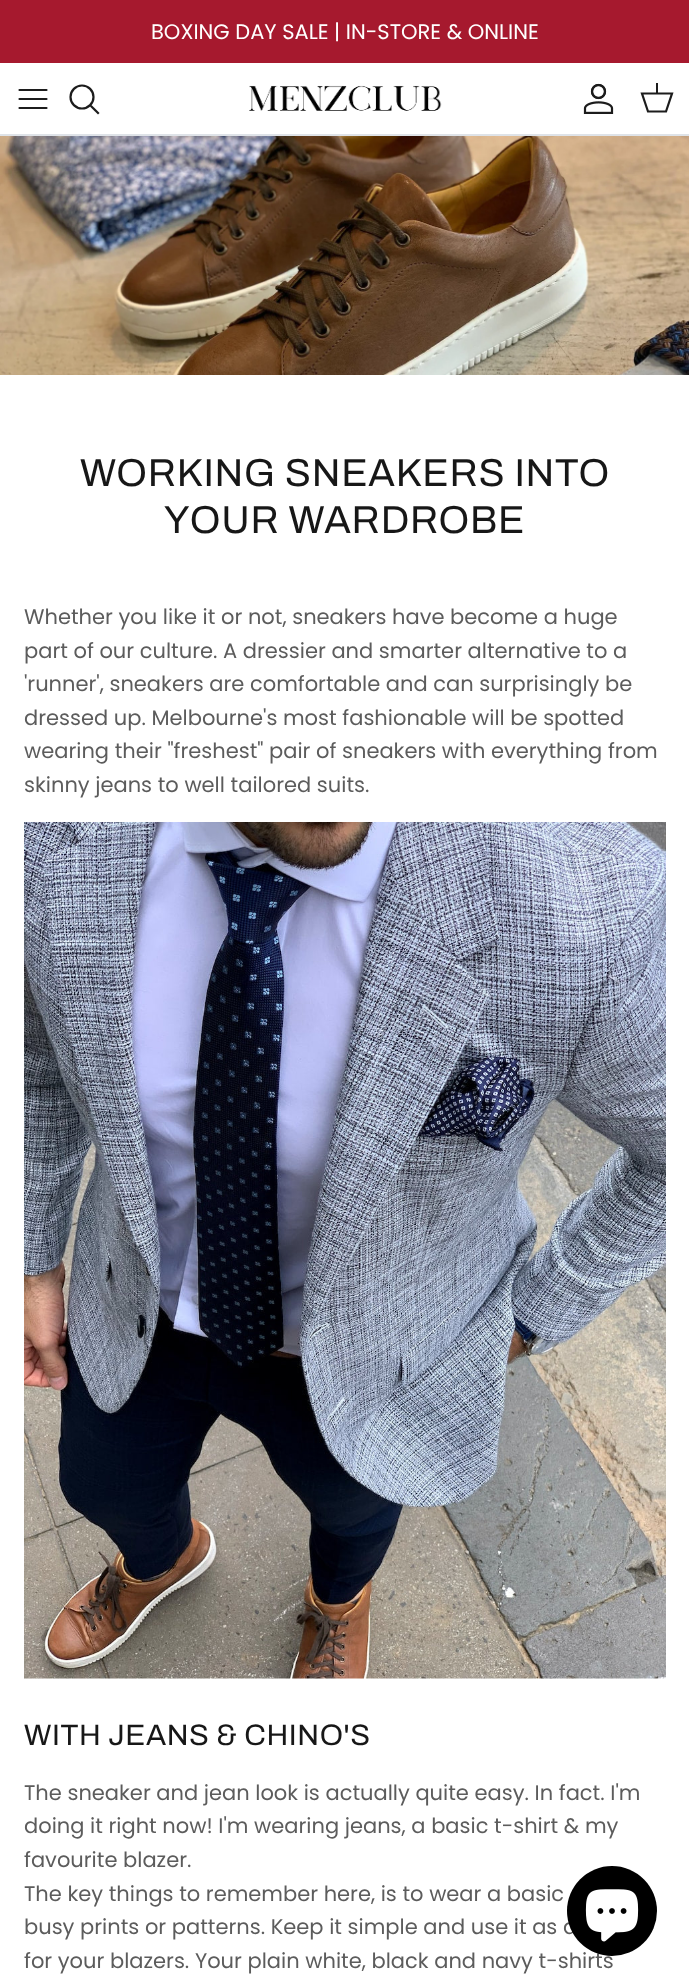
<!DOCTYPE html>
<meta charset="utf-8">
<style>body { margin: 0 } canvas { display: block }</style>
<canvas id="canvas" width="689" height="1987"></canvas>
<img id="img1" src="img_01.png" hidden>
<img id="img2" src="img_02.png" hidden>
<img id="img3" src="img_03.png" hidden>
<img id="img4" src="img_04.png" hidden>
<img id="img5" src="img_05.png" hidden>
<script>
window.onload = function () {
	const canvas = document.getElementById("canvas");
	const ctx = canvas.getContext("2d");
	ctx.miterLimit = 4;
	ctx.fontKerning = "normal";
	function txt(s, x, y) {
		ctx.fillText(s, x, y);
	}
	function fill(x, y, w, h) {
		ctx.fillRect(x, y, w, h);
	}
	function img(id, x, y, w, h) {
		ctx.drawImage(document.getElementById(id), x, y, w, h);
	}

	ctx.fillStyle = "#FFFFFF";
	fill(0, 0, 689, 1987);
	ctx.fillStyle = "#A6192E";
	fill(0, 0, 689, 63);
	ctx.fillStyle = "#DFE3E8";
	fill(0, 134, 689, 2);
	ctx.beginPath();
	ctx.moveTo(19.5, 99);
	ctx.lineTo(46.5, 99);
	ctx.moveTo(19.5, 90);
	ctx.lineTo(46.5, 90);
	ctx.moveTo(19.5, 108);
	ctx.lineTo(46.5, 108);
	ctx.strokeStyle = "#1C1C1C";
	ctx.lineWidth = 2.2;
	ctx.lineCap = "round";
	ctx.lineJoin = "round";
	ctx.stroke();
	ctx.beginPath();
	ctx.arc(82, 97, 11.5, 0, Math.PI * 2);
	ctx.stroke();
	ctx.beginPath();
	ctx.moveTo(91.5, 106.5);
	ctx.lineTo(98, 113);
	ctx.lineCap = "square";
	ctx.lineJoin = "miter";
	ctx.stroke();
	img("img1", 249, 85, 193, 26);
	img("img2", 583, 83, 31, 31);
	ctx.beginPath();
	ctx.moveTo(642, 93.5);
	ctx.lineTo(672, 93.5);
	ctx.lineTo(666, 111.5);
	ctx.lineTo(648, 111.5);
	ctx.closePath();
	ctx.lineCap = "butt";
	ctx.stroke();
	ctx.fillStyle = "#1C1C1C";
	fill(656, 83, 2, 11);
	img("img3", 0, 136, 689, 239);
	img("img4", 24, 822, 642, 857);
	ctx.font = "21px Poppins";
	ctx.fillStyle = "#FFFFFF";
	txt("BOXING DAY SALE | IN-STORE & ONLINE", 151, 39);
	ctx.letterSpacing = "0.75px";
	ctx.font = "39px Archivo";
	ctx.fillStyle = "#171717";
	txt("WORKING SNEAKERS INTO", 80, 486);
	txt("YOUR WARDROBE", 164, 533);
	ctx.letterSpacing = "0px";
	ctx.font = "21px Poppins";
	ctx.fillStyle = "#5C5C5C";
	txt("Whether you like it or not, sneakers have become a huge", 24, 624);
	txt("part of our culture. A dressier and smarter alternative to a", 24, 658);
	txt("'runner', sneakers are comfortable and can surprisingly be", 24, 691);
	txt("dressed up. Melbourne's most fashionable will be spotted", 24, 725);
	txt("wearing their \"freshest\" pair of sneakers with everything from", 24, 758);
	txt("skinny jeans to well tailored suits.", 24, 792);
	ctx.letterSpacing = "0.6px";
	ctx.font = "29.6px Archivo";
	ctx.fillStyle = "#171717";
	txt("WITH JEANS & CHINO'S", 24, 1745);
	ctx.letterSpacing = "0px";
	ctx.font = "21px Poppins";
	ctx.fillStyle = "#5C5C5C";
	txt("The sneaker and jean look is actually quite easy. In fact. I'm", 24, 1800);
	txt("doing it right now! I'm wearing jeans, a basic t-shirt & my", 24, 1833);
	txt("favourite blazer.", 24, 1867);
	txt("The key things to remember here, is to wear a basic", 24, 1901);
	txt("busy prints or patterns. Keep it simple and use it as a", 24, 1934);
	txt("for your blazers. Your plain white, black and navy t-shirts", 24, 1968);
	ctx.fillStyle = "#000000";
	ctx.beginPath();
	ctx.arc(612, 1911, 45, 0, Math.PI * 2);
	ctx.fill();
	img("img5", 585, 1889, 54, 53);
};
</script>
